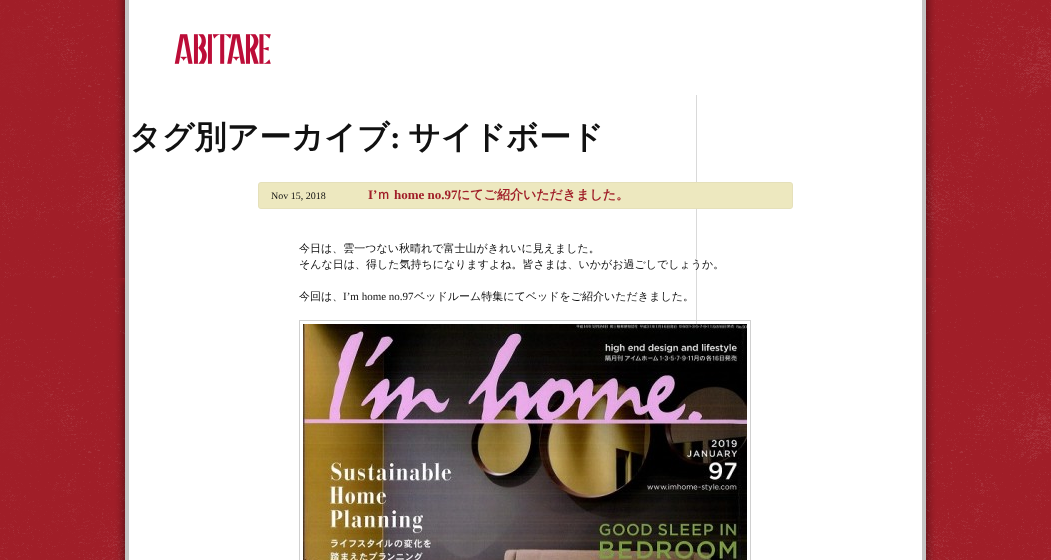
<!DOCTYPE html>
<meta charset="utf-8">
<style>body { margin: 0 } canvas { display: block }</style>
<canvas id="canvas" width="1051" height="560"></canvas>
<img id="img1" src="img_01.png" hidden>
<img id="img2" src="img_02.png" hidden>
<img id="img3" src="img_03.png" hidden>
<img id="img4" src="img_04.png" hidden>
<script>
window.onload = function () {
	const canvas = document.getElementById("canvas");
	const ctx = canvas.getContext("2d");
	ctx.miterLimit = 4;
	ctx.fontKerning = "normal";
	function txt(s, x, y) {
		ctx.fillText(s, x, y);
	}
	function fill(x, y, w, h) {
		ctx.fillRect(x, y, w, h);
	}
	function img(id, x, y, w, h) {
		ctx.drawImage(document.getElementById(id), x, y, w, h);
	}

	ctx.fillStyle = "#FFFFFF";
	fill(0, 0, 1051, 560);
	img("img1", 0, 0, 1051, 560);
	ctx.fillStyle = "#D9D9D9";
	fill(696, 95, 1, 229);
	img("img2", 174, 34, 97, 30);
	img("img3", 258, 182, 535, 27);
	ctx.strokeStyle = "#D0D0D0";
	ctx.strokeRect(299.5, 320.5, 451, 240);
	img("img4", 303, 324, 444, 236);
	ctx.font = "bold 32px WenQuanYi Zen Hei";
	ctx.fillStyle = "#111111";
	txt("タグ別アーカイブ", 129, 148);
	ctx.font = "bold 32px Liberation Serif";
	txt(":", 390, 148);
	ctx.font = "bold 32px WenQuanYi Zen Hei";
	txt("サイドボード", 408, 148);
	ctx.font = "10px Liberation Serif";
	txt("Nov 15, 2018", 271, 199);
	ctx.font = "bold 13px Liberation Serif";
	ctx.fillStyle = "#A01E28";
	txt("I’", 368, 199);
	ctx.font = "bold 13px WenQuanYi Zen Hei";
	txt("ｍ", 377, 199);
	ctx.font = "bold 13px Liberation Serif";
	txt("home no.97", 394, 199);
	ctx.font = "bold 13px WenQuanYi Zen Hei";
	txt("にてご紹介いただきました。", 457, 199);
	ctx.font = "500 11px WenQuanYi Zen Hei";
	ctx.fillStyle = "#111111";
	txt("今日は、雲一つない秋晴れで富士山がきれいに見えました。", 299, 252);
	txt("そんな日は、得した気持ちになりますよね。皆さまは、いかがお過ごしでしょうか。", 299, 268);
	txt("今回は、", 299, 300);
	ctx.font = "11px Liberation Serif";
	txt("I’m home no.97", 343, 300);
	ctx.font = "500 11px WenQuanYi Zen Hei";
	txt("ベッドルーム特集にてベッドをご紹介いただきました。", 414, 300);
};
</script>
